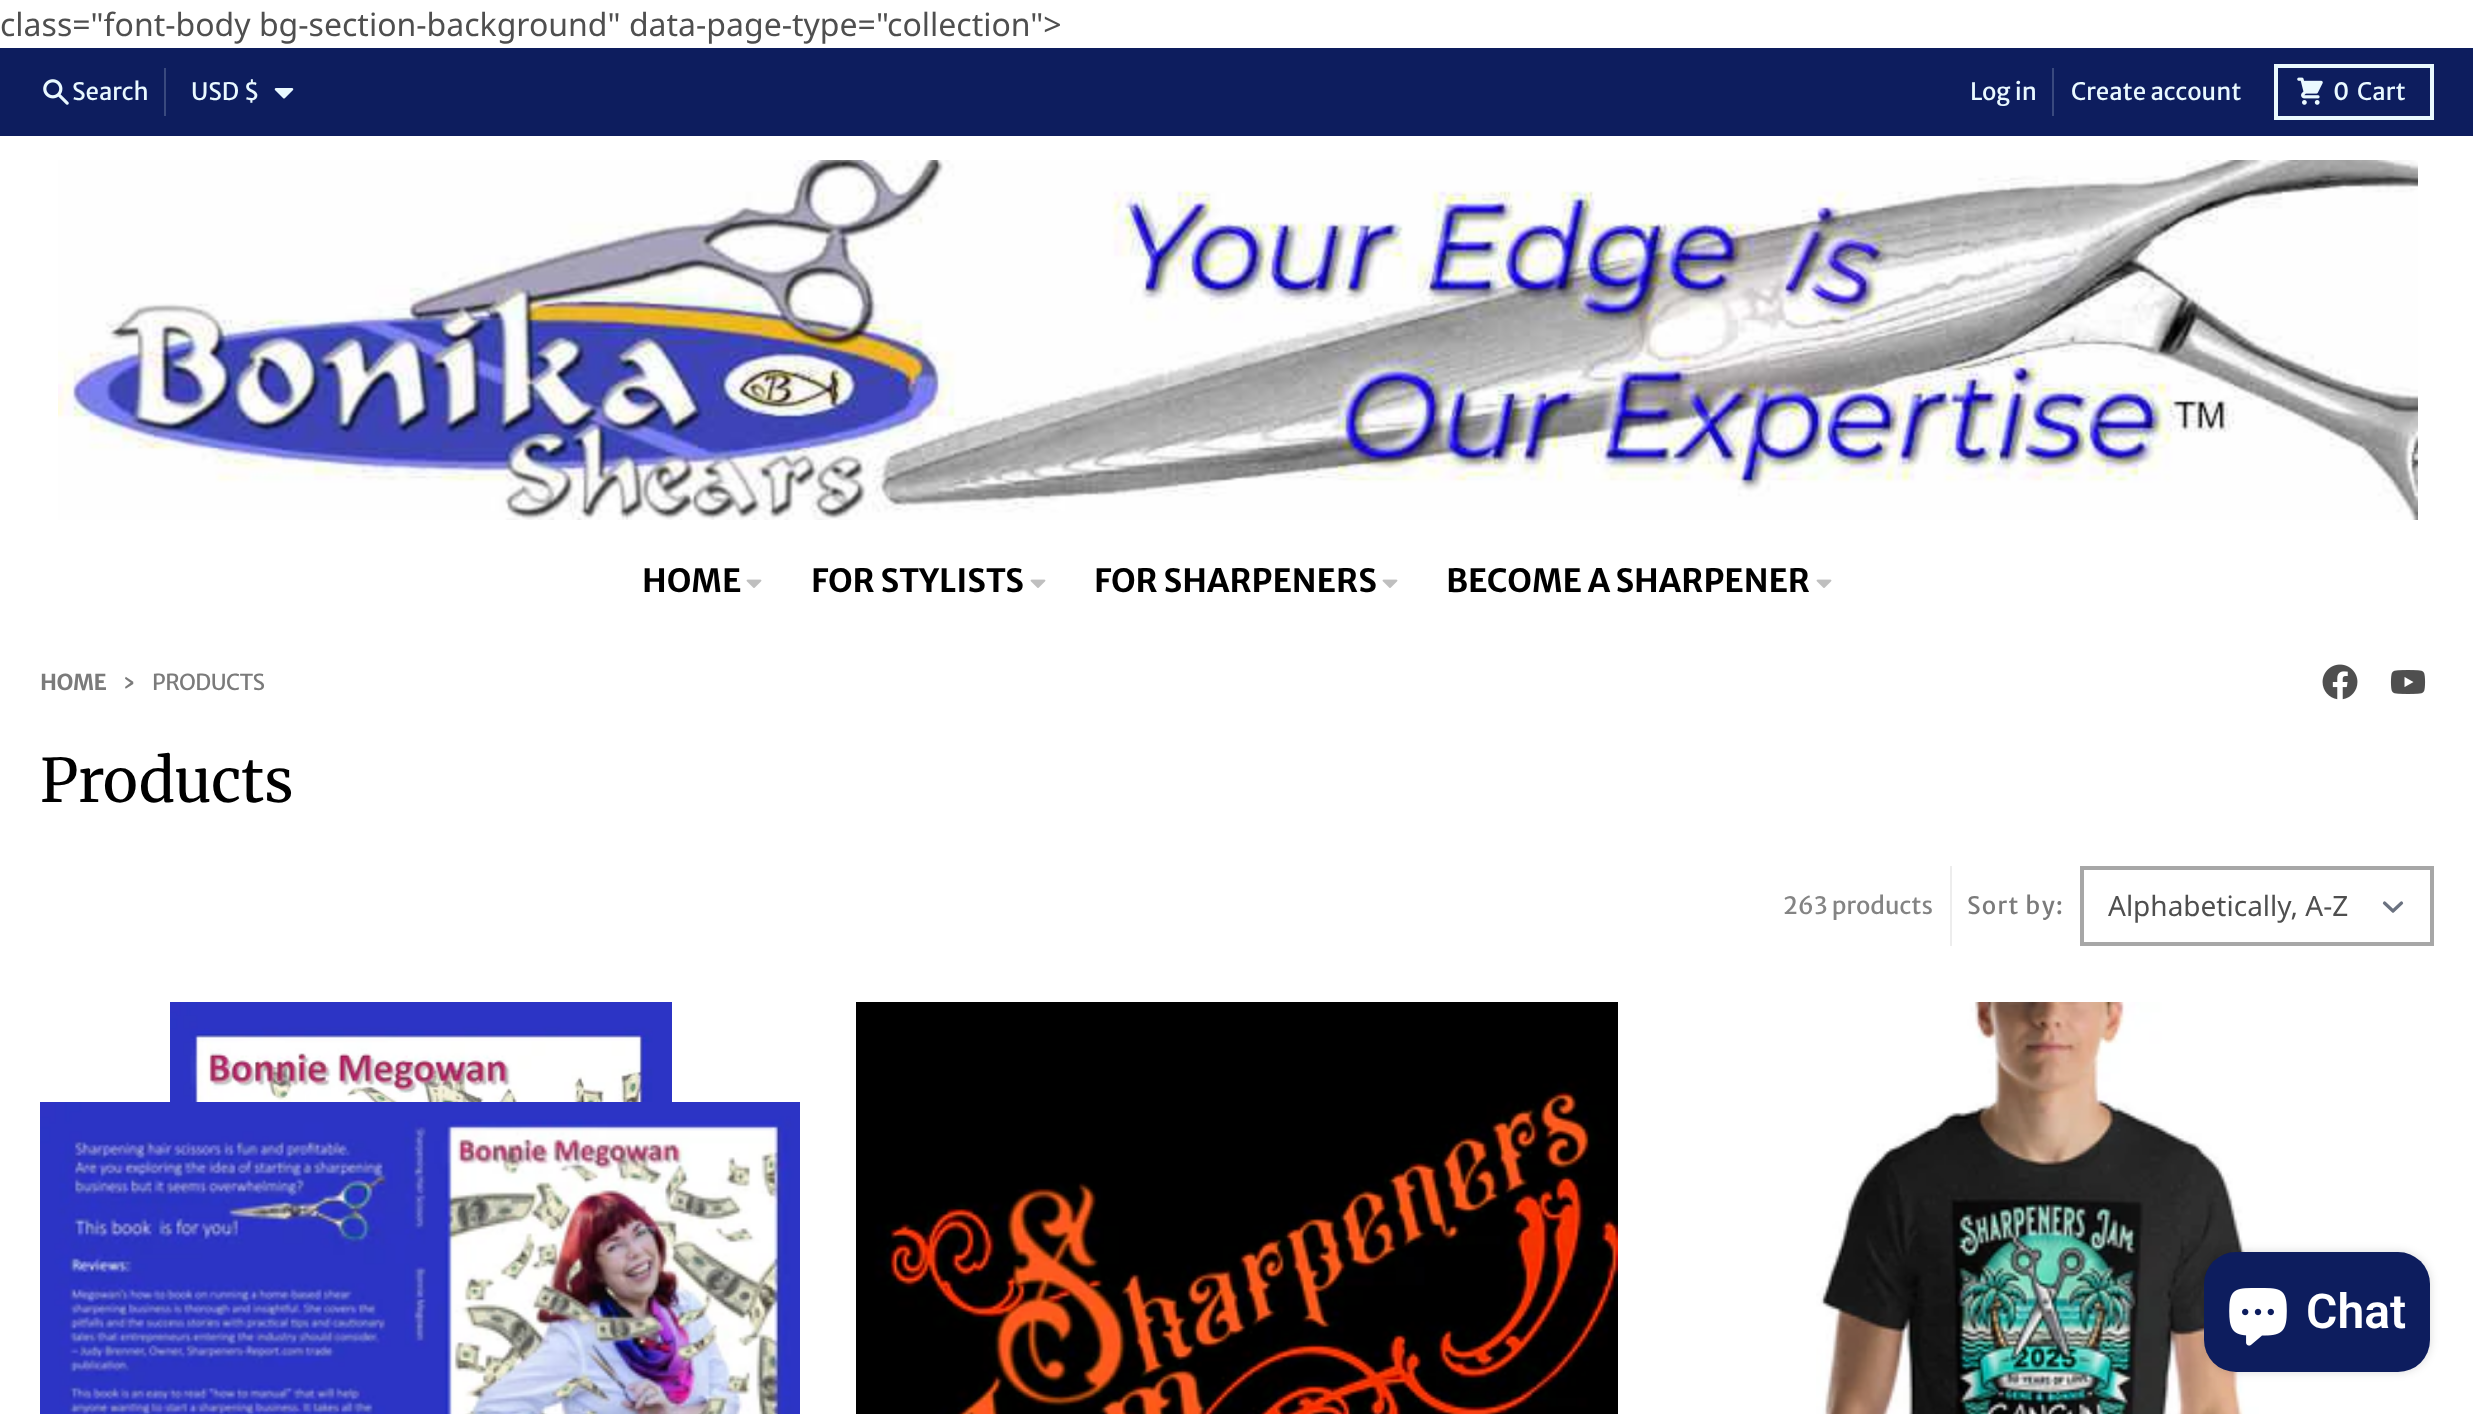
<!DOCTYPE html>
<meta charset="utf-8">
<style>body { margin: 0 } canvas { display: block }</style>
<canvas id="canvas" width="2473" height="1414"></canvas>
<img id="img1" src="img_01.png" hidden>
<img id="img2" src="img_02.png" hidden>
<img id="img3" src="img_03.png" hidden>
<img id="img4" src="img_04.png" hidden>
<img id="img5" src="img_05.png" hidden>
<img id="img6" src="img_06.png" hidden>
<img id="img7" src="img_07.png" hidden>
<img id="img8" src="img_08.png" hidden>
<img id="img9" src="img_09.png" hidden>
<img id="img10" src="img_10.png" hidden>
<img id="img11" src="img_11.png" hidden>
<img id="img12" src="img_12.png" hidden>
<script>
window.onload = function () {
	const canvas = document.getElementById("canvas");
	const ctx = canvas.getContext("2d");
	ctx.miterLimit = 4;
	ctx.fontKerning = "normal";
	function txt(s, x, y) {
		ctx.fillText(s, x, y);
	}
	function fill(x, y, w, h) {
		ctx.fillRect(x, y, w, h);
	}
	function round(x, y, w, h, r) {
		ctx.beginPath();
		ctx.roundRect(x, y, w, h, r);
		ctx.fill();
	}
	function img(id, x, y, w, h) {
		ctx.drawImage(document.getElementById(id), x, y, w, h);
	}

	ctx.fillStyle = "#FFFFFF";
	fill(0, 0, 2473, 1414);
	ctx.fillStyle = "#0D1D5E";
	fill(0, 48, 2473, 88);
	img("img1", 43, 79, 26, 26);
	ctx.fillStyle = "#39497E";
	fill(164, 68, 2, 48);
	img("img2", 274, 88, 20, 11);
	fill(2052, 68, 2, 48);
	ctx.strokeStyle = "#E9F9FF";
	ctx.lineWidth = 4;
	ctx.strokeRect(2276, 66, 156, 52);
	img("img3", 2297, 77, 26, 28);
	img("img4", 58, 160, 2360, 360);
	img("img5", 746, 579, 16, 9);
	img("img5", 1030, 579, 16, 9);
	img("img5", 1382, 579, 16, 9);
	img("img5", 1816, 579, 16, 9);
	img("img6", 2322, 664, 36, 36);
	img("img7", 2390, 670, 36, 24);
	ctx.fillStyle = "#EDEDED";
	fill(1950, 866, 2, 80);
	ctx.beginPath();
	ctx.moveTo(2384.5, 903);
	ctx.lineTo(2393, 911);
	ctx.lineTo(2401.5, 903);
	ctx.strokeStyle = "#6B7280";
	ctx.lineWidth = 3.2;
	ctx.lineCap = "round";
	ctx.lineJoin = "round";
	ctx.stroke();
	ctx.strokeStyle = "#A7A7A7";
	ctx.lineWidth = 4;
	ctx.lineJoin = "miter";
	ctx.strokeRect(2082, 868, 350, 76);
	img("img8", 170, 1002, 502, 100);
	img("img9", 40, 1102, 760, 312);
	img("img10", 856, 1002, 762, 412);
	img("img11", 1816, 1002, 443, 412);
	ctx.fillStyle = "rgba(0, 0, 0, 0.15)";
	ctx.filter = "blur(5px)";
	ctx.beginPath();
	ctx.roundRect(2204, 1252, 226, 120, 32);
	ctx.fill();
	ctx.filter = "none";
	ctx.fillStyle = "#0D1D5E";
	round(2204, 1252, 226, 120, 32);
	img("img12", 2229, 1288, 58, 58);
	ctx.font = "32px Noto Sans";
	ctx.fillStyle = "#4F4F4F";
	txt("class=\"font-body bg-section-background\" data-page-type=\"collection\">", 0, 36);
	ctx.font = "24px Merriweather Sans";
	ctx.fillStyle = "#E9F9FF";
	txt("Search", 72, 100);
	txt("USD $", 191, 100);
	txt("Log in", 1970, 100);
	txt("Create account", 2071, 100);
	txt("0", 2333, 100);
	txt("Cart", 2357, 100);
	ctx.font = "bold 32px Merriweather Sans";
	ctx.fillStyle = "#000000";
	txt("HOME", 642, 592);
	txt("FOR STYLISTS", 811, 592);
	txt("FOR SHARPENERS", 1094, 592);
	txt("BECOME A SHARPENER", 1446, 592);
	ctx.letterSpacing = "-0.5px";
	ctx.font = "bold 22px Merriweather Sans";
	ctx.fillStyle = "#7B7B7B";
	txt("HOME", 40, 690);
	ctx.font = "24px Merriweather Sans";
	txt("›", 122, 690);
	ctx.font = "22px Merriweather Sans";
	txt("PRODUCTS", 152, 690);
	ctx.letterSpacing = "0px";
	ctx.font = "60px Merriweather";
	ctx.fillStyle = "#000000";
	txt("Products", 40, 802);
	ctx.font = "24px Merriweather Sans";
	ctx.fillStyle = "#848484";
	txt("263 products", 1783, 914);
	ctx.letterSpacing = "1.25px";
	ctx.fillStyle = "#7B7B7B";
	txt("Sort by:", 1967, 914);
	ctx.letterSpacing = "0px";
	ctx.font = "28px Noto Sans";
	ctx.fillStyle = "#4F4F4F";
	txt("Alphabetically, A-Z", 2108, 916);
	ctx.font = "600 48px Roboto";
	ctx.fillStyle = "#FFFFFF";
	txt("Chat", 2306, 1328);
};
</script>
